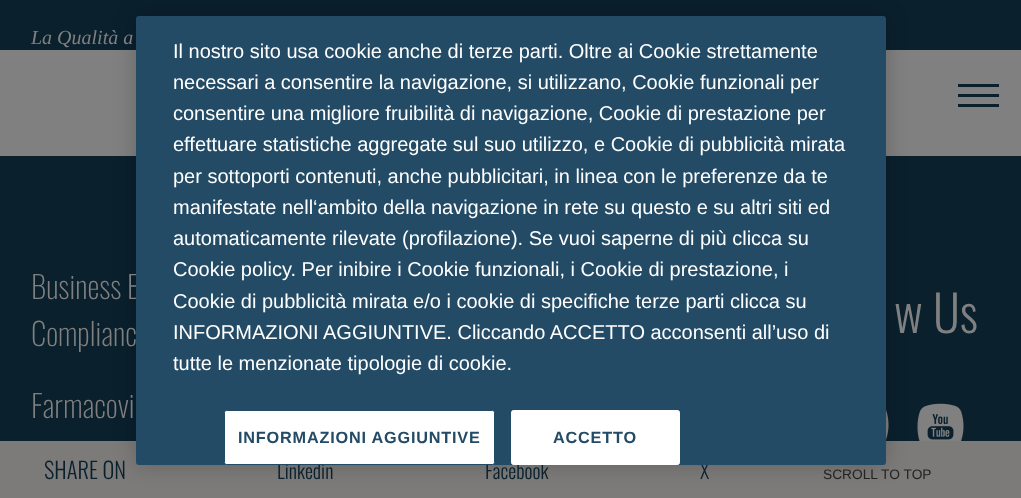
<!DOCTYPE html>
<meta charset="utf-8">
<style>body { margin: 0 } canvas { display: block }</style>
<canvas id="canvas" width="1021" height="498"></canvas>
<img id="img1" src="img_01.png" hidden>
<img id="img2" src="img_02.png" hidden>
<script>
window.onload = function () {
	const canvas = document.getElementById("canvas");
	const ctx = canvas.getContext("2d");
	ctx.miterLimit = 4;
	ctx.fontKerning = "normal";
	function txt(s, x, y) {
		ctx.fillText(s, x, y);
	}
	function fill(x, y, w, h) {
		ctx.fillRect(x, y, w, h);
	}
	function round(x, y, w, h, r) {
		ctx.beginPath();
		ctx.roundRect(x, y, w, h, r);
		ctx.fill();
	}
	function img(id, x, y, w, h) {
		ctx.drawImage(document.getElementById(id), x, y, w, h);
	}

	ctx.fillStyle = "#808080";
	fill(0, 0, 1021, 498);
	ctx.fillStyle = "#0A202D";
	fill(0, 0, 1021, 50);
	fill(958, 84, 41, 3);
	fill(958, 94, 41, 3);
	fill(958, 104, 41, 3);
	ctx.fillStyle = "#7C7B7A";
	fill(0, 441, 1021, 57);
	ctx.fillStyle = "#0A202D";
	fill(0, 156, 1021, 285);
	img("img1", 886, 410, 3, 30);
	img("img2", 917, 403, 47, 38);
	ctx.fillStyle = "rgba(0, 0, 0, 0.2)";
	ctx.filter = "blur(11px)";
	ctx.beginPath();
	ctx.roundRect(136, 16, 750, 449, 3);
	ctx.fill();
	ctx.filter = "none";
	ctx.font = "italic 20px Liberation Serif";
	ctx.fillStyle = "#808080";
	txt("La Qualità a", 31, 44);
	ctx.font = "300 22.5px Oswald";
	ctx.fillStyle = "#0A202D";
	txt("SHARE ON", 44, 479);
	ctx.font = "300 20px Oswald";
	txt("Linkedin", 277, 479);
	txt("Facebook", 485, 479);
	txt("X", 700, 479);
	ctx.font = "13.75px Liberation Sans";
	ctx.fillStyle = "#242321";
	txt("SCROLL TO TOP", 823, 479);
	ctx.font = "200 31px Oswald";
	ctx.fillStyle = "#808080";
	txt("Business E", 31, 299);
	txt("Complianc", 31, 346);
	txt("Farmacovi", 31, 418);
	ctx.font = "300 50px Oswald";
	txt("w Us", 894, 333);
	ctx.fillStyle = "#234B66";
	round(136, 16, 750, 449, 3);
	ctx.font = "20px Arimo";
	ctx.fillStyle = "#FFFFFF";
	txt("Il nostro sito usa cookie anche di terze parti. Oltre ai Cookie strettamente", 173, 58);
	txt("necessari a consentire la navigazione, si utilizzano, Cookie funzionali per", 173, 89);
	txt("consentire una migliore fruibilità di navigazione, Cookie di prestazione per", 173, 120);
	txt("effettuare statistiche aggregate sul suo utilizzo, e Cookie di pubblicità mirata", 173, 151);
	txt("per sottoporti contenuti, anche pubblicitari, in linea con le preferenze da te", 173, 183);
	txt("manifestate nell‘ambito della navigazione in rete su questo e su altri siti ed", 173, 214);
	txt("automaticamente rilevate (profilazione). Se vuoi saperne di più clicca su", 173, 245);
	txt("Cookie policy. Per inibire i Cookie funzionali, i Cookie di prestazione, i", 173, 276);
	txt("Cookie di pubblicità mirata e/o i cookie di specifiche terze parti clicca su", 173, 308);
	txt("INFORMAZIONI AGGIUNTIVE. Cliccando ACCETTO acconsenti all’uso di", 173, 339);
	txt("tutte le menzionate tipologie di cookie.", 173, 370);
	ctx.beginPath();
	ctx.roundRect(224.5, 410.5, 270, 54, 2);
	ctx.fill();
	ctx.strokeStyle = "#234B66";
	ctx.stroke();
	ctx.letterSpacing = "0.8px";
	ctx.font = "bold 16.25px Arimo";
	ctx.fillStyle = "#234B66";
	txt("INFORMAZIONI AGGIUNTIVE", 238, 443);
	ctx.fillStyle = "#FFFFFF";
	ctx.beginPath();
	ctx.roundRect(511.5, 410.5, 168, 54, 2);
	ctx.fill();
	ctx.strokeStyle = "#FFFFFF";
	ctx.stroke();
	ctx.fillStyle = "#234B66";
	txt("ACCETTO", 553, 443);
};
</script>
